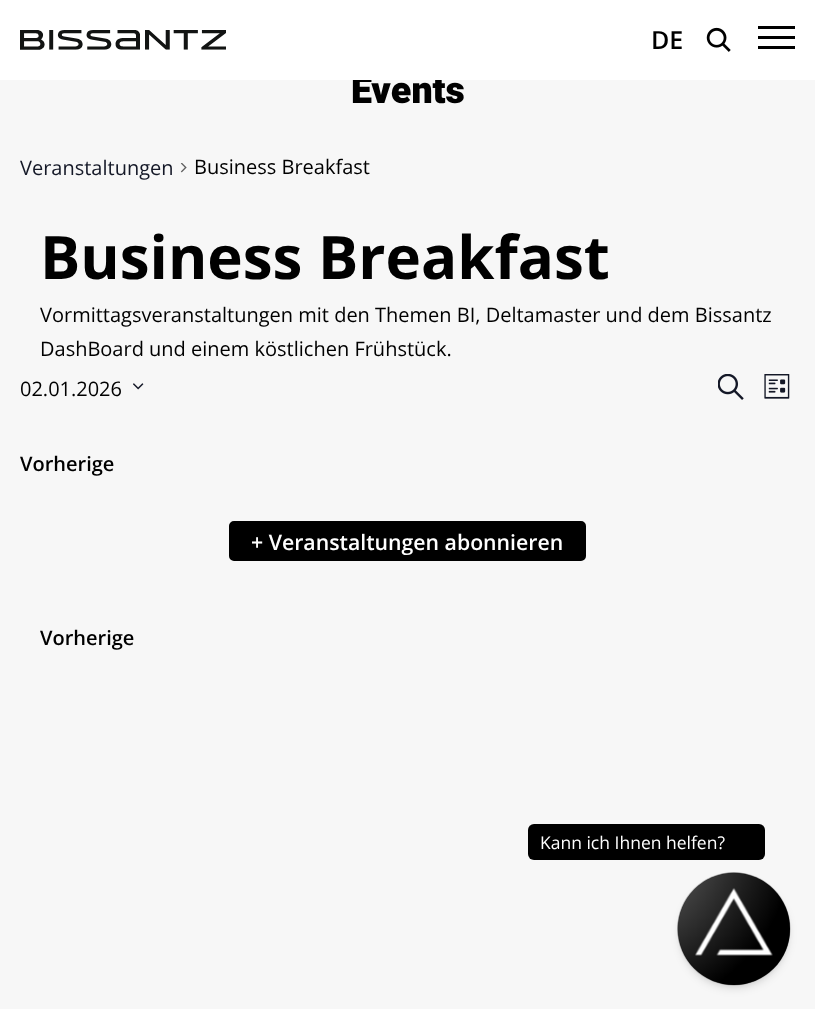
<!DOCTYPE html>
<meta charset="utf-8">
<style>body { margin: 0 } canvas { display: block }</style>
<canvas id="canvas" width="815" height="1009"></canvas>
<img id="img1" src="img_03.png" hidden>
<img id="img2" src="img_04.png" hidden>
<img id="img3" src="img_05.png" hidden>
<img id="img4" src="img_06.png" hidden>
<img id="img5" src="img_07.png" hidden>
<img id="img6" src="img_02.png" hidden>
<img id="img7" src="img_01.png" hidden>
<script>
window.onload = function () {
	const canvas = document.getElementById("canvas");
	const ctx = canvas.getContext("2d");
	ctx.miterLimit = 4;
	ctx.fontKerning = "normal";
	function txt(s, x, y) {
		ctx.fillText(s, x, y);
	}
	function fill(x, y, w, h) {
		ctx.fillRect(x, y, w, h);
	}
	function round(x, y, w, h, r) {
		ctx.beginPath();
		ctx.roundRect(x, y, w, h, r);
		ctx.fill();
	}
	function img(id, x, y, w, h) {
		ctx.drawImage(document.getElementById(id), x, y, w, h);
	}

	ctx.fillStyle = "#F7F7F7";
	fill(0, 0, 815, 1009);
	img("img1", 180, 163, 7, 10);
	img("img2", 133, 383, 11, 7);
	img("img3", 718, 374, 26, 26);
	img("img4", 764, 374, 26, 25);
	ctx.fillStyle = "#000000";
	ctx.beginPath();
	ctx.roundRect(230.5, 522.5, 354, 37, 3.5);
	ctx.fill();
	ctx.strokeStyle = "#000000";
	ctx.lineWidth = 3;
	ctx.stroke();
	round(528, 824, 237, 36, 6);
	ctx.fillStyle = "rgba(0, 0, 0, 0.1)";
	ctx.filter = "blur(2.5px)";
	ctx.beginPath();
	ctx.roundRect(680, 878, 108, 107, 53.5);
	ctx.fill();
	ctx.filter = "none";
	ctx.filter = "blur(4px)";
	ctx.beginPath();
	ctx.roundRect(679, 879, 110, 110, 55);
	ctx.fill();
	ctx.filter = "none";
	ctx.fillStyle = "#000000";
	ctx.beginPath();
	ctx.arc(734, 929, 56, 0, Math.PI * 2);
	ctx.fill();
	img("img5", 677, 872, 114, 114);
	ctx.font = "900 37.5px Heebo";
	txt("Events", 351, 103);
	ctx.fillStyle = "#FFFFFF";
	fill(0, 0, 815, 80);
	ctx.fillStyle = "#000000";
	fill(758, 26, 37, 3);
	fill(758, 36, 37, 3);
	fill(758, 46, 37, 3);
	img("img6", 706, 27, 25, 25);
	ctx.font = "600 25px Open Sans";
	txt("DE", 651, 49);
	img("img7", 20, 30, 206, 20);
	ctx.font = "20px Open Sans";
	ctx.fillStyle = "#141827";
	txt("Veranstaltungen", 20, 175);
	ctx.fillStyle = "#000000";
	txt("Business Breakfast", 194, 174);
	ctx.font = "bold 60px Open Sans";
	txt("Business Breakfast", 40, 279);
	ctx.font = "20px Open Sans";
	txt("Vormittagsveranstaltungen mit den Themen BI, Deltamaster und dem Bissantz", 40, 322);
	txt("DashBoard und einem köstlichen Frühstück.", 40, 356);
	txt("02.01.2026", 20, 396);
	ctx.font = "600 20px Open Sans";
	txt("Vorherige", 20, 471);
	ctx.font = "600 21.25px Open Sans";
	ctx.fillStyle = "#FFFFFF";
	txt("+ Veranstaltungen abonnieren", 251, 550);
	ctx.font = "600 20px Open Sans";
	ctx.fillStyle = "#000000";
	txt("Vorherige", 40, 645);
	ctx.font = "17.5px Open Sans";
	ctx.fillStyle = "#FFFFFF";
	txt("Kann ich Ihnen helfen?", 540, 849);
};
</script>
